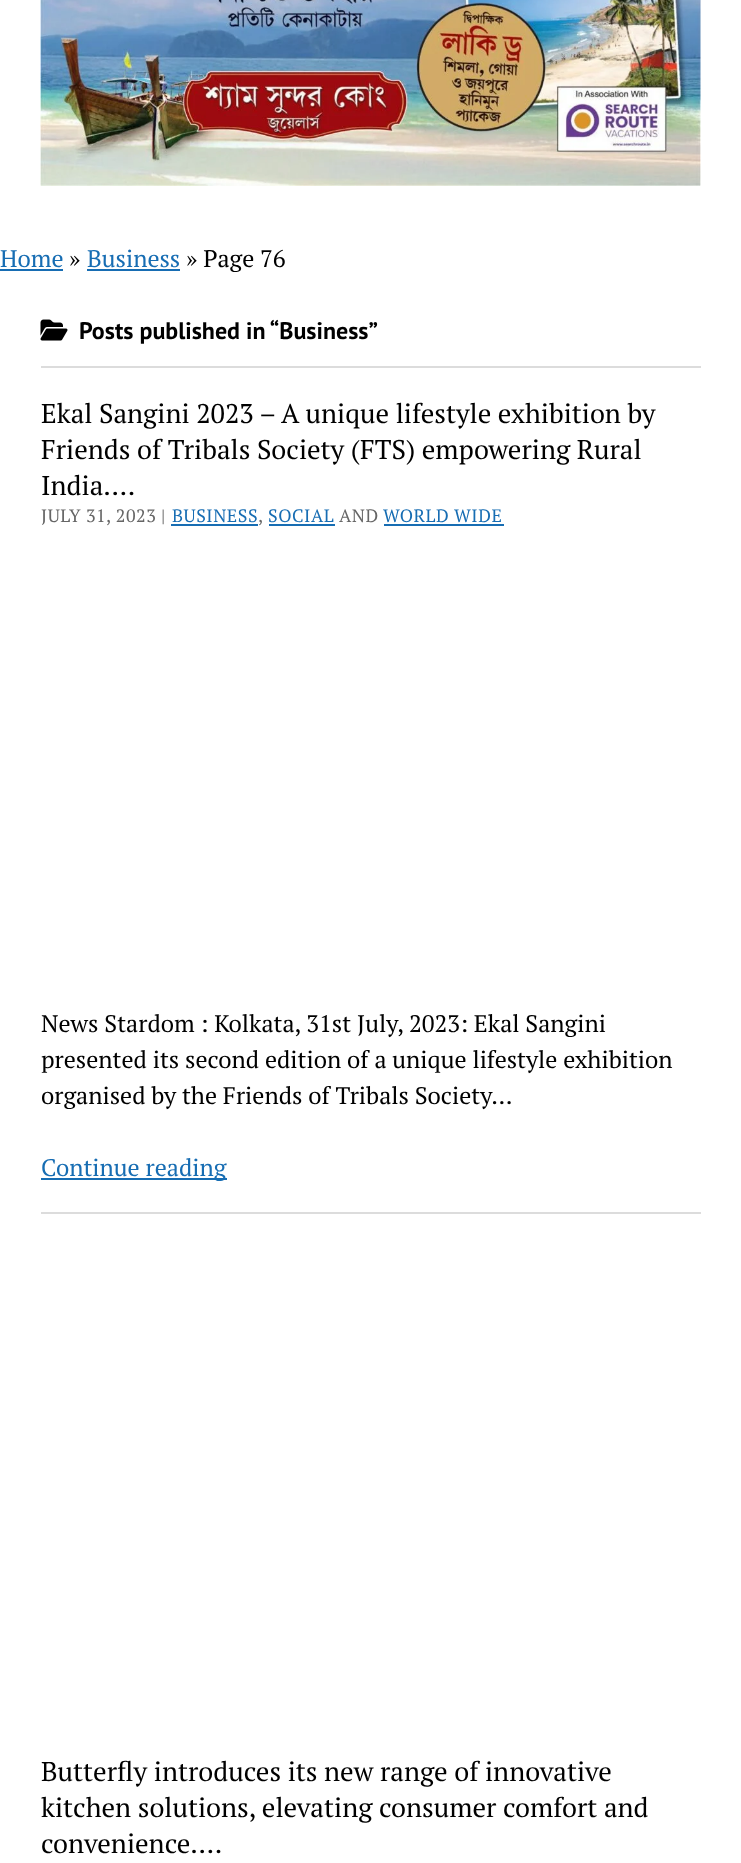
<!DOCTYPE html>
<meta charset="utf-8">
<style>body { margin: 0 } canvas { display: block }</style>
<canvas id="canvas" width="741" height="1863"></canvas>
<img id="img1" src="img_01.png" hidden>
<img id="img2" src="img_02.png" hidden>
<script>
window.onload = function () {
	const canvas = document.getElementById("canvas");
	const ctx = canvas.getContext("2d");
	ctx.miterLimit = 4;
	ctx.fontKerning = "normal";
	function txt(s, x, y) {
		ctx.fillText(s, x, y);
	}
	function fill(x, y, w, h) {
		ctx.fillRect(x, y, w, h);
	}
	function img(id, x, y, w, h) {
		ctx.drawImage(document.getElementById(id), x, y, w, h);
	}

	ctx.fillStyle = "#FFFFFF";
	fill(0, 0, 741, 1863);
	img("img1", 40, 0, 661, 186);
	ctx.fillStyle = "#176DB3";
	fill(0, 269, 63, 2);
	fill(87, 269, 93, 2);
	ctx.fillStyle = "#DCDCDC";
	fill(41, 366, 660, 2);
	img("img2", 40, 319, 28, 22);
	fill(41, 1212, 660, 2);
	ctx.fillStyle = "#176DB3";
	fill(171, 524, 87, 2);
	fill(269, 524, 66, 2);
	fill(384, 524, 120, 2);
	fill(41, 1178, 186, 2);
	ctx.font = "24px PT Serif";
	txt("Home", 0, 267);
	ctx.fillStyle = "#000000";
	txt("»", 69, 267);
	ctx.fillStyle = "#176DB3";
	txt("Business", 87, 267);
	ctx.fillStyle = "#000000";
	txt("» Page 76", 186, 267);
	ctx.font = "bold 24px PT Sans";
	txt("Posts published in “Business”", 79, 339);
	ctx.font = "27px PT Serif";
	txt("Ekal Sangini 2023 – A unique lifestyle exhibition by", 41, 423);
	txt("Friends of Tribals Society (FTS) empowering Rural", 41, 459);
	txt("India….", 41, 495);
	ctx.letterSpacing = "0.5px";
	ctx.font = "18px PT Serif";
	ctx.fillStyle = "#666666";
	txt("JULY 31, 2023 |", 41, 522);
	ctx.fillStyle = "#176DB3";
	txt("BUSINESS", 172, 522);
	ctx.fillStyle = "#666666";
	txt(",", 258, 522);
	ctx.fillStyle = "#176DB3";
	txt("SOCIAL", 268, 522);
	ctx.fillStyle = "#666666";
	txt("AND", 339, 522);
	ctx.fillStyle = "#176DB3";
	txt("WORLD WIDE", 383, 522);
	ctx.letterSpacing = "0px";
	ctx.font = "24px PT Serif";
	ctx.fillStyle = "#000000";
	txt("News Stardom : Kolkata, 31st July, 2023: Ekal Sangini", 41, 1032);
	txt("presented its second edition of a unique lifestyle exhibition", 41, 1068);
	txt("organised by the Friends of Tribals Society…", 41, 1104);
	ctx.fillStyle = "#176DB3";
	txt("Continue reading", 41, 1176);
	ctx.font = "27px PT Serif";
	ctx.fillStyle = "#000000";
	txt("Butterfly introduces its new range of innovative", 41, 1781);
	txt("kitchen solutions, elevating consumer comfort and", 41, 1817);
	txt("convenience….", 41, 1853);
};
</script>
